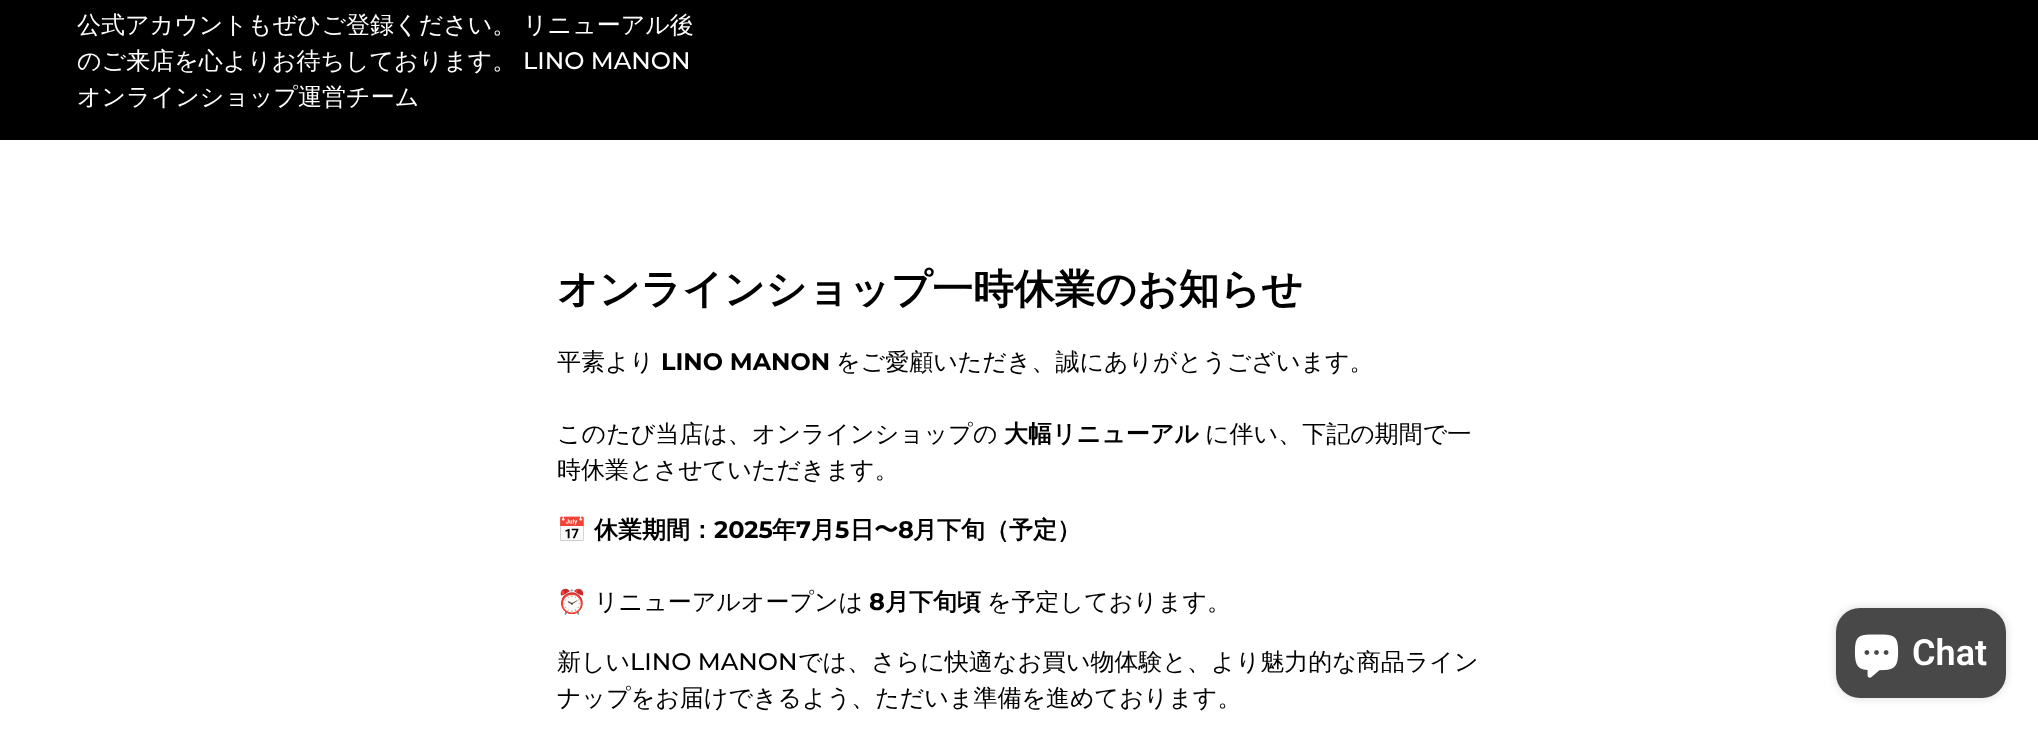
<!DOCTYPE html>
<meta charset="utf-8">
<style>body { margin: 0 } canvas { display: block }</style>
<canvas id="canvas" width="2038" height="729"></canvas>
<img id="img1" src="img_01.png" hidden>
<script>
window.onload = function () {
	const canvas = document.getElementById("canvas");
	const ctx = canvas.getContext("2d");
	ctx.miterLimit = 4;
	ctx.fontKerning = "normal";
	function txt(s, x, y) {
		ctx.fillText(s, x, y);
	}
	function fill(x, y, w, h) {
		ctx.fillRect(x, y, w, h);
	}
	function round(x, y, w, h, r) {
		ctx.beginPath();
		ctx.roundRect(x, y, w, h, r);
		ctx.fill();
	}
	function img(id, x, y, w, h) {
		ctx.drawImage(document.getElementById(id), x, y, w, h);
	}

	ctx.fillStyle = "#FFFFFF";
	fill(0, 0, 2038, 729);
	ctx.fillStyle = "#000000";
	fill(0, 0, 2038, 140);
	ctx.fillStyle = "rgba(0, 0, 0, 0.15)";
	ctx.filter = "blur(4px)";
	ctx.beginPath();
	ctx.roundRect(1836, 608, 170, 90, 24);
	ctx.fill();
	ctx.filter = "none";
	ctx.fillStyle = "#484848";
	round(1836, 608, 170, 90, 24);
	img("img1", 1854, 634, 45, 44);
	ctx.font = "500 24px WenQuanYi Zen Hei";
	ctx.fillStyle = "#FFFFFF";
	txt("公式アカウントもぜひご登録ください。", 77, 33);
	txt("リニューアル後", 523, 33);
	txt("のご来店を心よりお待ちしております。", 77, 69);
	ctx.font = "500 24px Montserrat";
	txt("LINO MANON", 523, 69);
	ctx.font = "500 24px WenQuanYi Zen Hei";
	txt("オンラインショップ運営チーム", 77, 105);
	ctx.font = "bold 40.75px WenQuanYi Zen Hei";
	ctx.fillStyle = "#000000";
	txt("オンラインショップ一時休業のお知らせ", 557, 303);
	ctx.font = "500 24px WenQuanYi Zen Hei";
	txt("平素より", 557, 370);
	ctx.font = "bold 24px Montserrat";
	txt("LINO MANON", 661, 370);
	ctx.font = "500 24px WenQuanYi Zen Hei";
	txt("をご愛顧いただき、誠にありがとうございます。", 836, 370);
	txt("このたび当店は、オンラインショップの", 557, 442);
	ctx.font = "bold 24px WenQuanYi Zen Hei";
	txt("大幅リニューアル", 1004, 442);
	ctx.font = "500 24px WenQuanYi Zen Hei";
	txt("に伴い、下記の期間で一", 1205, 442);
	txt("時休業とさせていただきます。", 557, 478);
	ctx.font = "24px Noto Color Emoji";
	txt("📅", 557, 538);
	ctx.font = "bold 24px WenQuanYi Zen Hei";
	txt("休業期間：", 594, 538);
	ctx.font = "bold 24px Montserrat";
	txt("2025", 714, 538);
	ctx.font = "bold 24px WenQuanYi Zen Hei";
	txt("年", 772, 538);
	ctx.font = "bold 24px Montserrat";
	txt("7", 796, 538);
	ctx.font = "bold 24px WenQuanYi Zen Hei";
	txt("月", 811, 538);
	ctx.font = "bold 24px Montserrat";
	txt("5", 835, 538);
	ctx.font = "bold 24px WenQuanYi Zen Hei";
	txt("日〜", 850, 538);
	ctx.font = "bold 24px Montserrat";
	txt("8", 898, 538);
	ctx.font = "bold 24px WenQuanYi Zen Hei";
	txt("月下旬（予定）", 913, 538);
	ctx.font = "24px Noto Color Emoji";
	txt("⏰", 557, 610);
	ctx.font = "500 24px WenQuanYi Zen Hei";
	txt("リニューアルオープンは", 594, 610);
	ctx.font = "bold 24px Montserrat";
	txt("8", 869, 610);
	ctx.font = "bold 24px WenQuanYi Zen Hei";
	txt("月下旬頃", 885, 610);
	ctx.font = "500 24px WenQuanYi Zen Hei";
	txt("を予定しております。", 987, 610);
	txt("新しい", 557, 670);
	ctx.font = "500 24px Montserrat";
	txt("LINO MANON", 630, 670);
	ctx.font = "500 24px WenQuanYi Zen Hei";
	txt("では、さらに快適なお買い物体験と、より魅力的な商品ライン", 798, 670);
	txt("ナップをお届けできるよう、ただいま準備を進めております。", 557, 706);
	ctx.font = "600 36px Roboto";
	ctx.fillStyle = "#FFFFFF";
	txt("Chat", 1912, 665);
};
</script>
